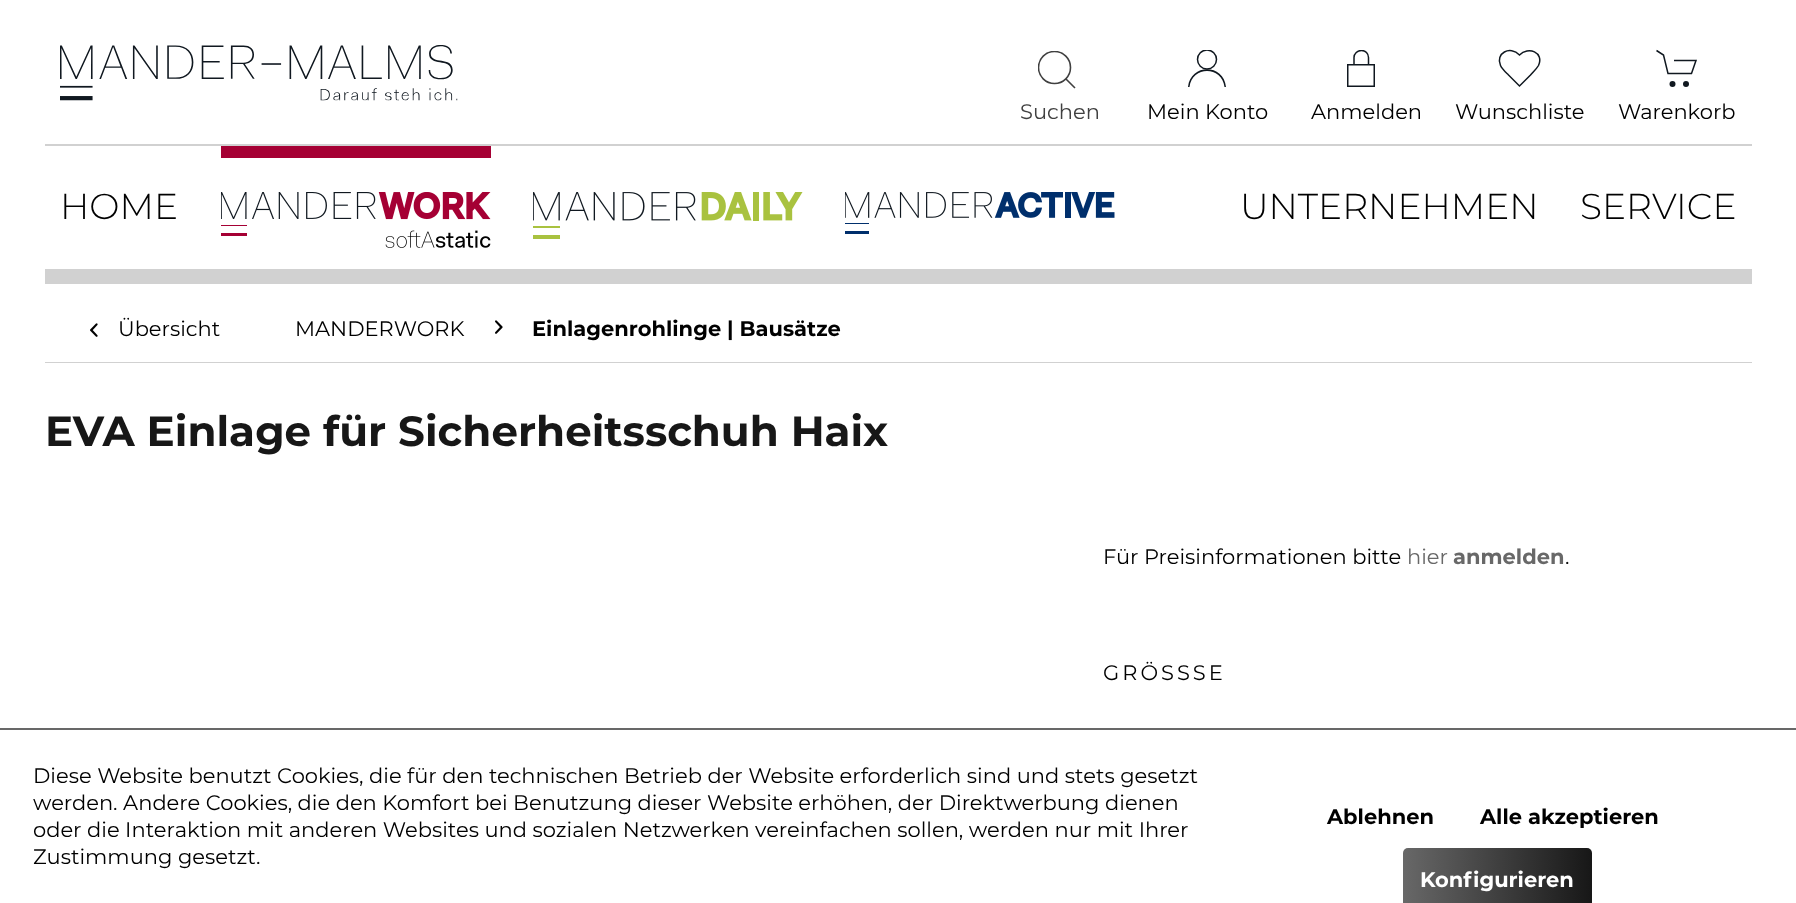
<!DOCTYPE html>
<meta charset="utf-8">
<style>body { margin: 0 } canvas { display: block }</style>
<canvas id="canvas" width="1796" height="903"></canvas>
<img id="img1" src="img_01.png" hidden>
<img id="img2" src="img_02.png" hidden>
<img id="img3" src="img_03.png" hidden>
<img id="img4" src="img_04.png" hidden>
<img id="img5" src="img_05.png" hidden>
<img id="img6" src="img_06.png" hidden>
<script>
window.onload = function () {
	const canvas = document.getElementById("canvas");
	const ctx = canvas.getContext("2d");
	ctx.miterLimit = 4;
	ctx.fontKerning = "normal";
	function txt(s, x, y) {
		ctx.fillText(s, x, y);
	}
	function fill(x, y, w, h) {
		ctx.fillRect(x, y, w, h);
	}
	function round(x, y, w, h, r) {
		ctx.beginPath();
		ctx.roundRect(x, y, w, h, r);
		ctx.fill();
	}
	function img(id, x, y, w, h) {
		ctx.drawImage(document.getElementById(id), x, y, w, h);
	}
	let gradient;

	ctx.fillStyle = "#FFFFFF";
	fill(0, 0, 1796, 903);
	ctx.fillStyle = "#D1D1D1";
	fill(45, 144, 1707, 2);
	img("img1", 60, 45, 398, 56);
	ctx.save();
	ctx.beginPath();
	ctx.rect(1038, 51, 38, 38);
	ctx.clip();
	ctx.beginPath();
	ctx.arc(1054.5, 67.5, 16, 0, Math.PI * 2);
	ctx.strokeStyle = "#404040";
	ctx.lineWidth = 1.6;
	ctx.stroke();
	ctx.restore();
	ctx.beginPath();
	ctx.moveTo(1066, 79);
	ctx.lineTo(1075, 88);
	ctx.closePath();
	ctx.strokeStyle = "#404040";
	ctx.lineWidth = 1.6;
	ctx.stroke();
	ctx.save();
	ctx.beginPath();
	ctx.rect(1188, 50, 39, 37);
	ctx.clip();
	ctx.beginPath();
	ctx.arc(1207, 59.5, 9.5, 0, Math.PI * 2);
	ctx.strokeStyle = "#101820";
	ctx.lineWidth = 1.5;
	ctx.stroke();
	ctx.restore();
	ctx.fillStyle = "#101820";
	ctx.beginPath();
	ctx.moveTo(1189.5, 87);
	ctx.bezierCurveTo(1192, 65.5, 1222, 65.5, 1224.5, 87);
	ctx.lineTo(1226, 87);
	ctx.bezierCurveTo(1224, 63.5, 1190.5, 63, 1188, 87);
	ctx.closePath();
	ctx.fill();
	ctx.strokeStyle = "#101820";
	ctx.lineWidth = 1.5;
	ctx.strokeRect(1347.75, 64.75, 26.5, 21.5);
	ctx.save();
	ctx.beginPath();
	ctx.rect(1343, 50, 37, 37);
	ctx.clip();
	ctx.beginPath();
	ctx.moveTo(1354, 64);
	ctx.lineTo(1354, 57.5);
	ctx.bezierCurveTo(1354, 53.5, 1357.5, 50.5, 1361.5, 50.5);
	ctx.bezierCurveTo(1365.5, 50.5, 1368.5, 53.5, 1368.5, 57.5);
	ctx.lineTo(1368.5, 64);
	ctx.stroke();
	ctx.restore();
	ctx.beginPath();
	ctx.moveTo(1519.5, 55);
	ctx.bezierCurveTo(1510, 45, 1495, 53.5, 1500.5, 65.5);
	ctx.bezierCurveTo(1502, 69, 1505.5, 72, 1508.5, 75);
	ctx.lineTo(1519.5, 86);
	ctx.lineTo(1530.5, 75);
	ctx.bezierCurveTo(1533, 72, 1536.5, 69, 1538.5, 65.5);
	ctx.bezierCurveTo(1544.5, 52, 1528, 46, 1519.5, 55);
	ctx.closePath();
	ctx.stroke();
	ctx.beginPath();
	ctx.arc(1672.5, 84, 3, 0, Math.PI * 2);
	ctx.fill();
	ctx.beginPath();
	ctx.arc(1686, 84, 3, 0, Math.PI * 2);
	ctx.fill();
	ctx.beginPath();
	ctx.moveTo(1656.5, 50.5);
	ctx.lineTo(1663.5, 55);
	ctx.lineTo(1668, 73.5);
	ctx.lineTo(1691.5, 73.5);
	ctx.lineTo(1696, 60.5);
	ctx.lineTo(1674, 60.5);
	ctx.stroke();
	ctx.fillStyle = "#D1D1D1";
	fill(45, 269, 1707, 15);
	ctx.fillStyle = "#A50034";
	fill(221, 146, 270, 12);
	img("img2", 221, 192, 270, 56);
	img("img3", 533, 192, 270, 47);
	img("img4", 845, 192, 270, 42);
	ctx.fillStyle = "#D1D1D1";
	fill(45, 362, 1707, 1);
	img("img5", 90, 323, 8, 14);
	img("img6", 495, 320, 8, 14);
	ctx.fillStyle = "#686868";
	fill(0, 728, 1796, 2);
	gradient = ctx.createLinearGradient(1403, 879, 1592, 879);
	gradient.addColorStop(0, "#686868");
	gradient.addColorStop(1, "#171717");
	ctx.fillStyle = gradient;
	round(1403, 848, 189, 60, 5);
	ctx.font = "21px Montserrat";
	ctx.fillStyle = "#404040";
	txt("Suchen", 1020, 119);
	ctx.fillStyle = "#000000";
	txt("Mein Konto", 1147, 119);
	txt("Anmelden", 1311, 119);
	txt("Wunschliste", 1455, 119);
	txt("Warenkorb", 1618, 119);
	ctx.font = "300 36px Montserrat";
	txt("HOME", 60, 219);
	txt("UNTERNEHMEN", 1240, 219);
	txt("SERVICE", 1580, 219);
	ctx.font = "21px Montserrat";
	txt("Übersicht", 118, 336);
	txt("MANDERWORK", 295, 336);
	ctx.font = "bold 21px Montserrat";
	txt("Einlagenrohlinge | Bausätze", 532, 336);
	ctx.font = "bold 42px Montserrat";
	ctx.fillStyle = "#171717";
	txt("EVA Einlage für Sicherheitsschuh Haix", 45, 446);
	ctx.font = "21px Montserrat";
	ctx.fillStyle = "#000000";
	txt("Für Preisinformationen bitte", 1103, 564);
	ctx.fillStyle = "#686868";
	txt("hier", 1407, 564);
	ctx.font = "bold 21px Montserrat";
	txt("anmelden", 1453, 564);
	ctx.font = "21px Montserrat";
	ctx.fillStyle = "#000000";
	txt(".", 1565, 564);
	ctx.letterSpacing = "3px";
	txt("GRÖSSSE", 1103, 680);
	ctx.letterSpacing = "0px";
	txt("Diese Website benutzt Cookies, die für den technischen Betrieb der Website erforderlich sind und stets gesetzt", 33, 783);
	txt("werden. Andere Cookies, die den Komfort bei Benutzung dieser Website erhöhen, der Direktwerbung dienen", 33, 810);
	txt("oder die Interaktion mit anderen Websites und sozialen Netzwerken vereinfachen sollen, werden nur mit Ihrer", 33, 837);
	txt("Zustimmung gesetzt.", 33, 864);
	ctx.font = "bold 21px Montserrat";
	txt("Ablehnen", 1327, 824);
	txt("Alle akzeptieren", 1480, 824);
	ctx.fillStyle = "#FFFFFF";
	txt("Konfigurieren", 1420, 887);
};
</script>
